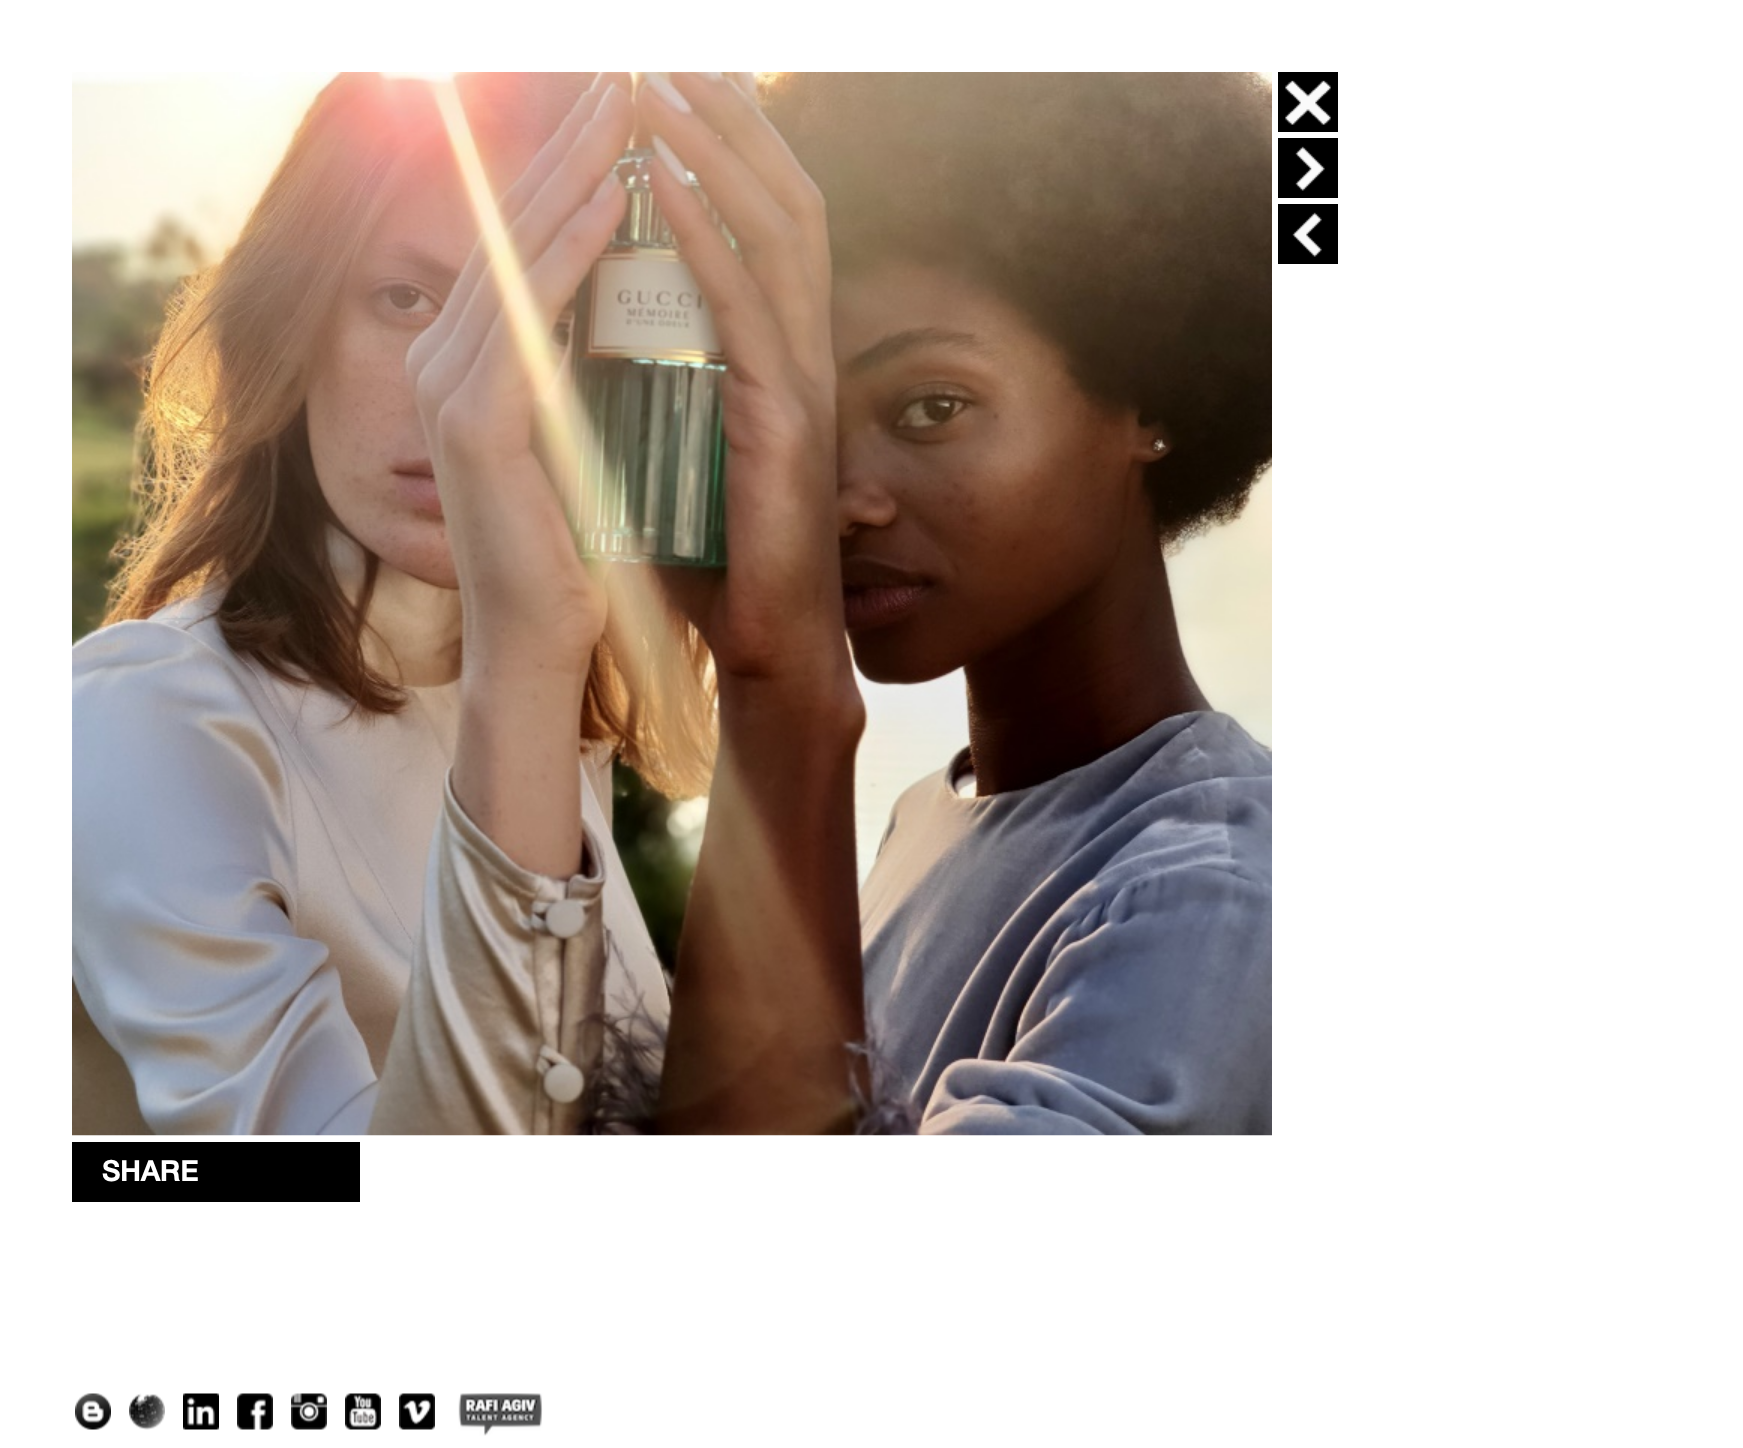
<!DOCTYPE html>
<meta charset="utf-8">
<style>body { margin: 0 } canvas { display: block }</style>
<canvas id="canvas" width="1743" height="1448"></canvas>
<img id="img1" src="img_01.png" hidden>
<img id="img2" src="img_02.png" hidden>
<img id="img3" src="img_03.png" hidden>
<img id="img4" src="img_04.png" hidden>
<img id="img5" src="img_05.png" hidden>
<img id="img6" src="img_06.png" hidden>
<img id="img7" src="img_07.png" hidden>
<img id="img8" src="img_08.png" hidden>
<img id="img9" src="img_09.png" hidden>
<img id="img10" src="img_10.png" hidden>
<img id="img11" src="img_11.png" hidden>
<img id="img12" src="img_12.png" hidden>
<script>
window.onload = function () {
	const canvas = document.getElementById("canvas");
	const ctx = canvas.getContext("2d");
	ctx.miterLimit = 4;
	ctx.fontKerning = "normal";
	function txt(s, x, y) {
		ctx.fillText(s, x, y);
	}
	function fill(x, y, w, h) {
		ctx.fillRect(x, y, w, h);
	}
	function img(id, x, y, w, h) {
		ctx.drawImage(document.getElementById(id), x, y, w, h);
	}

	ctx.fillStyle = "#FFFFFF";
	fill(0, 0, 1743, 1448);
	img("img1", 1278, 72, 60, 60);
	img("img2", 1278, 138, 60, 60);
	img("img3", 1278, 204, 60, 60);
	img("img4", 72, 72, 1200, 1064);
	ctx.fillStyle = "#000000";
	fill(72, 1142, 288, 60);
	img("img5", 75, 1393, 36, 37);
	img("img6", 129, 1393, 36, 37);
	img("img7", 183, 1393, 36, 37);
	img("img8", 237, 1393, 36, 37);
	img("img9", 291, 1393, 36, 37);
	img("img10", 345, 1393, 36, 37);
	img("img11", 399, 1393, 36, 37);
	img("img12", 458, 1393, 85, 43);
	ctx.font = "bold 30px 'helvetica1'";
	ctx.fillStyle = "#FFFFFF";
	txt("SHARE", 102, 1181);
};
</script>
